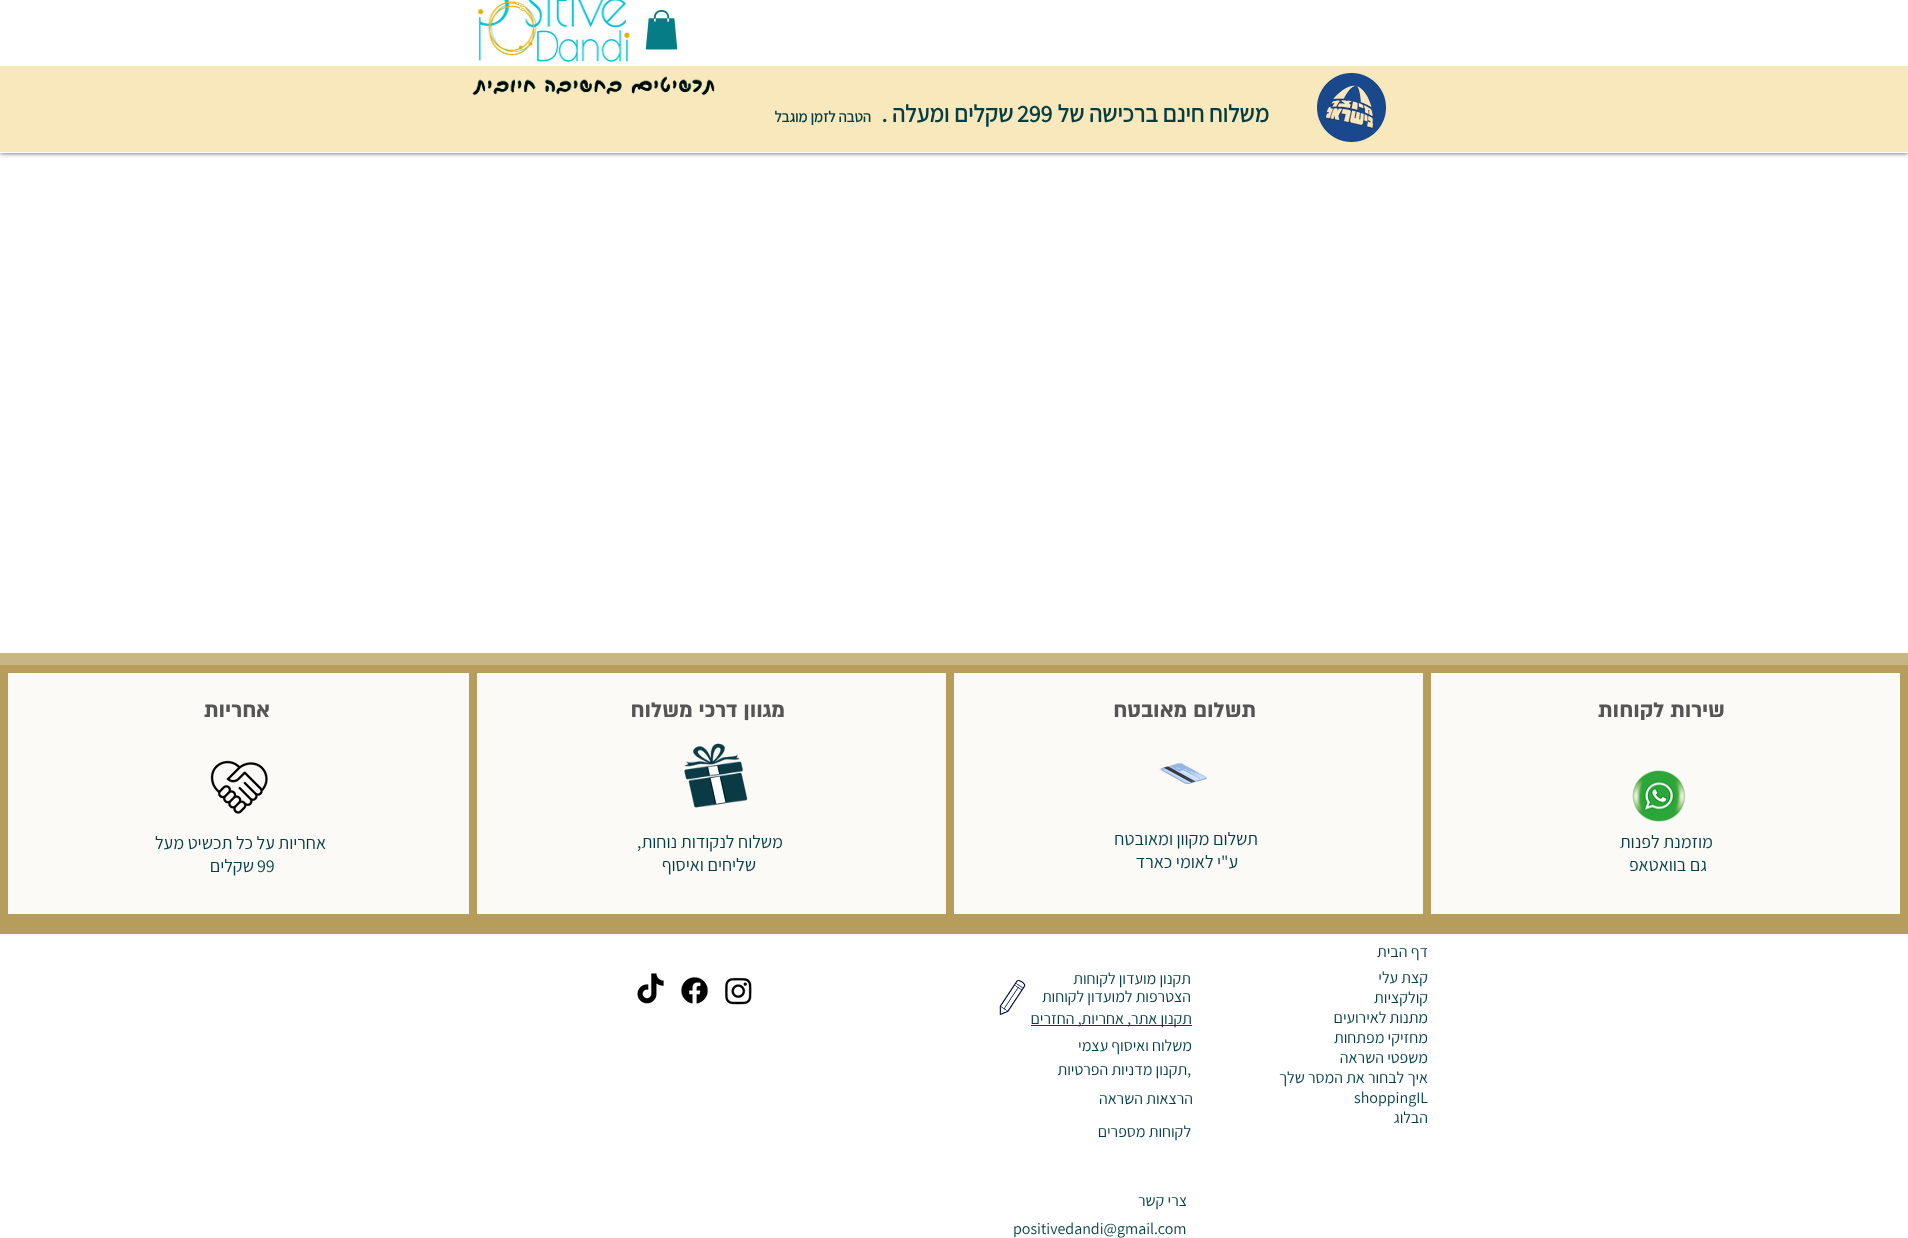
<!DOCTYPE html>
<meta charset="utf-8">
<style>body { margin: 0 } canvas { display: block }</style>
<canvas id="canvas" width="1908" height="1238"></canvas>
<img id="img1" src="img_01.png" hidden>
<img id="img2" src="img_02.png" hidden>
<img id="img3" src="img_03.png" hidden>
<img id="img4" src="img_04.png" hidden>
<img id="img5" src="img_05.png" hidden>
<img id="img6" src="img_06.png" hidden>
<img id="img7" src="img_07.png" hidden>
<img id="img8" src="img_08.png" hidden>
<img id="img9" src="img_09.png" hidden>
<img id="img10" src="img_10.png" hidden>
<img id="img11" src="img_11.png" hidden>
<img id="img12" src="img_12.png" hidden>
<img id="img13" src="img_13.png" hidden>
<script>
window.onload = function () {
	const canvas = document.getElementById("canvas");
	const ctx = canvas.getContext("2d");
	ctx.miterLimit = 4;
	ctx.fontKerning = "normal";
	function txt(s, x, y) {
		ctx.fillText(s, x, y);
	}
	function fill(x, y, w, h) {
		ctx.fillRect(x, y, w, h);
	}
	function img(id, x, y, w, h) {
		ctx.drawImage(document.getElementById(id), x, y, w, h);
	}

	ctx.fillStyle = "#FFFFFF";
	fill(0, 0, 1908, 1238);
	ctx.save();
	ctx.beginPath();
	ctx.rect(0, 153, 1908, 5);
	ctx.clip();
	ctx.fillStyle = "rgba(0, 0, 0, 0.7)";
	ctx.filter = "blur(2.5px)";
	ctx.beginPath();
	ctx.rect(0, -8, 1908, 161);
	ctx.fill();
	ctx.filter = "none";
	ctx.restore();
	img("img1", 645, 10, 33, 40);
	img("img2", 477, 0, 153, 62);
	ctx.fillStyle = "#F9E8BC";
	fill(0, 66, 1908, 86);
	img("img3", 1317, 73, 69, 69);
	img("img4", 472, 76, 243, 20);
	ctx.fillStyle = "#B69D5C";
	fill(0, 653, 1908, 281);
	img("img5", 0, 653, 1908, 12);
	ctx.fillStyle = "#FBFAF7";
	fill(1431, 673, 469, 241);
	img("img6", 1632, 770, 54, 52);
	fill(954, 673, 469, 241);
	img("img7", 1159, 763, 49, 21);
	fill(477, 673, 469, 241);
	img("img8", 684, 743, 64, 65);
	fill(8, 673, 461, 241);
	img("img9", 210, 760, 58, 54);
	ctx.fillStyle = "#033E43";
	fill(1031, 1025, 161, 1);
	img("img10", 999, 979, 27, 36);
	img("img11", 725, 977, 27, 28);
	img("img12", 681, 977, 27, 27);
	img("img13", 637, 973, 27, 31);
	ctx.direction = "rtl";
	ctx.font = "bold 24px Assistant";
	txt("משלוח חינם ברכישה של", 1269, 122);
	ctx.direction = "ltr";
	txt("299", 1017, 122);
	ctx.direction = "rtl";
	txt("שקלים ומעלה .", 1013, 122);
	ctx.font = "bold 15px Assistant";
	txt("הטבה לזמן מוגבל", 871, 122);
	ctx.font = "bold 24px 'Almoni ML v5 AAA'";
	ctx.fillStyle = "#555555";
	txt("שירות לקוחות", 1725, 717);
	ctx.font = "18px Assistant";
	ctx.fillStyle = "#033E43";
	txt("מוזמנת לפנות", 1713, 848);
	txt("גם בוואטאפ", 1707, 871);
	ctx.font = "bold 24px 'Almoni ML v5 AAA'";
	ctx.fillStyle = "#555555";
	txt("תשלום מאובטח", 1256, 717);
	ctx.font = "18px Assistant";
	ctx.fillStyle = "#033E43";
	txt("תשלום מקוון ומאובטח", 1258, 845);
	txt("ע\"י לאומי כארד", 1238, 868);
	ctx.font = "bold 24px 'Almoni ML v5 AAA'";
	ctx.fillStyle = "#555555";
	txt("מגוון דרכי משלוח", 785, 717);
	ctx.font = "18px Assistant";
	ctx.fillStyle = "#033E43";
	txt("משלוח לנקודות נוחות,", 783, 848);
	txt("שליחים ואיסוף", 756, 871);
	ctx.font = "bold 24px 'Almoni ML v5 AAA'";
	ctx.fillStyle = "#555555";
	txt("אחריות", 270, 717);
	ctx.font = "18px Assistant";
	ctx.fillStyle = "#033E43";
	txt("אחריות על כל תכשיט מעל", 326, 849);
	ctx.direction = "ltr";
	txt("99", 257, 872);
	ctx.direction = "rtl";
	txt("שקלים", 254, 872);
	ctx.font = "16px Assistant";
	txt("דף הבית", 1428, 957);
	txt("קצת עלי", 1428, 983);
	txt("קולקציות", 1428, 1003);
	txt("מתנות לאירועים", 1428, 1023);
	txt("מחזיקי מפתחות", 1428, 1043);
	txt("משפטי השראה", 1428, 1063);
	txt("איך לבחור את המסר שלך", 1428, 1083);
	ctx.direction = "ltr";
	txt("shoppingIL", 1354, 1103);
	ctx.direction = "rtl";
	txt("הבלוג", 1428, 1123);
	txt("תקנון מועדון לקוחות", 1191, 984);
	txt("תקנון אתר, אחריות, החזרים", 1192, 1024);
	txt("לקוחות מספרים", 1191, 1137);
	txt("הצטרפות למועדון לקוחות", 1191, 1002);
	txt("משלוח ואיסוף עצמי", 1192, 1051);
	txt("הרצאות השראה", 1193, 1104);
	txt("צרי קשר", 1187, 1206);
	ctx.direction = "ltr";
	txt("positivedandi@gmail.com", 1013, 1234);
	ctx.direction = "rtl";
	txt(",תקנון מדניות הפרטיות", 1191, 1075);
};
</script>
